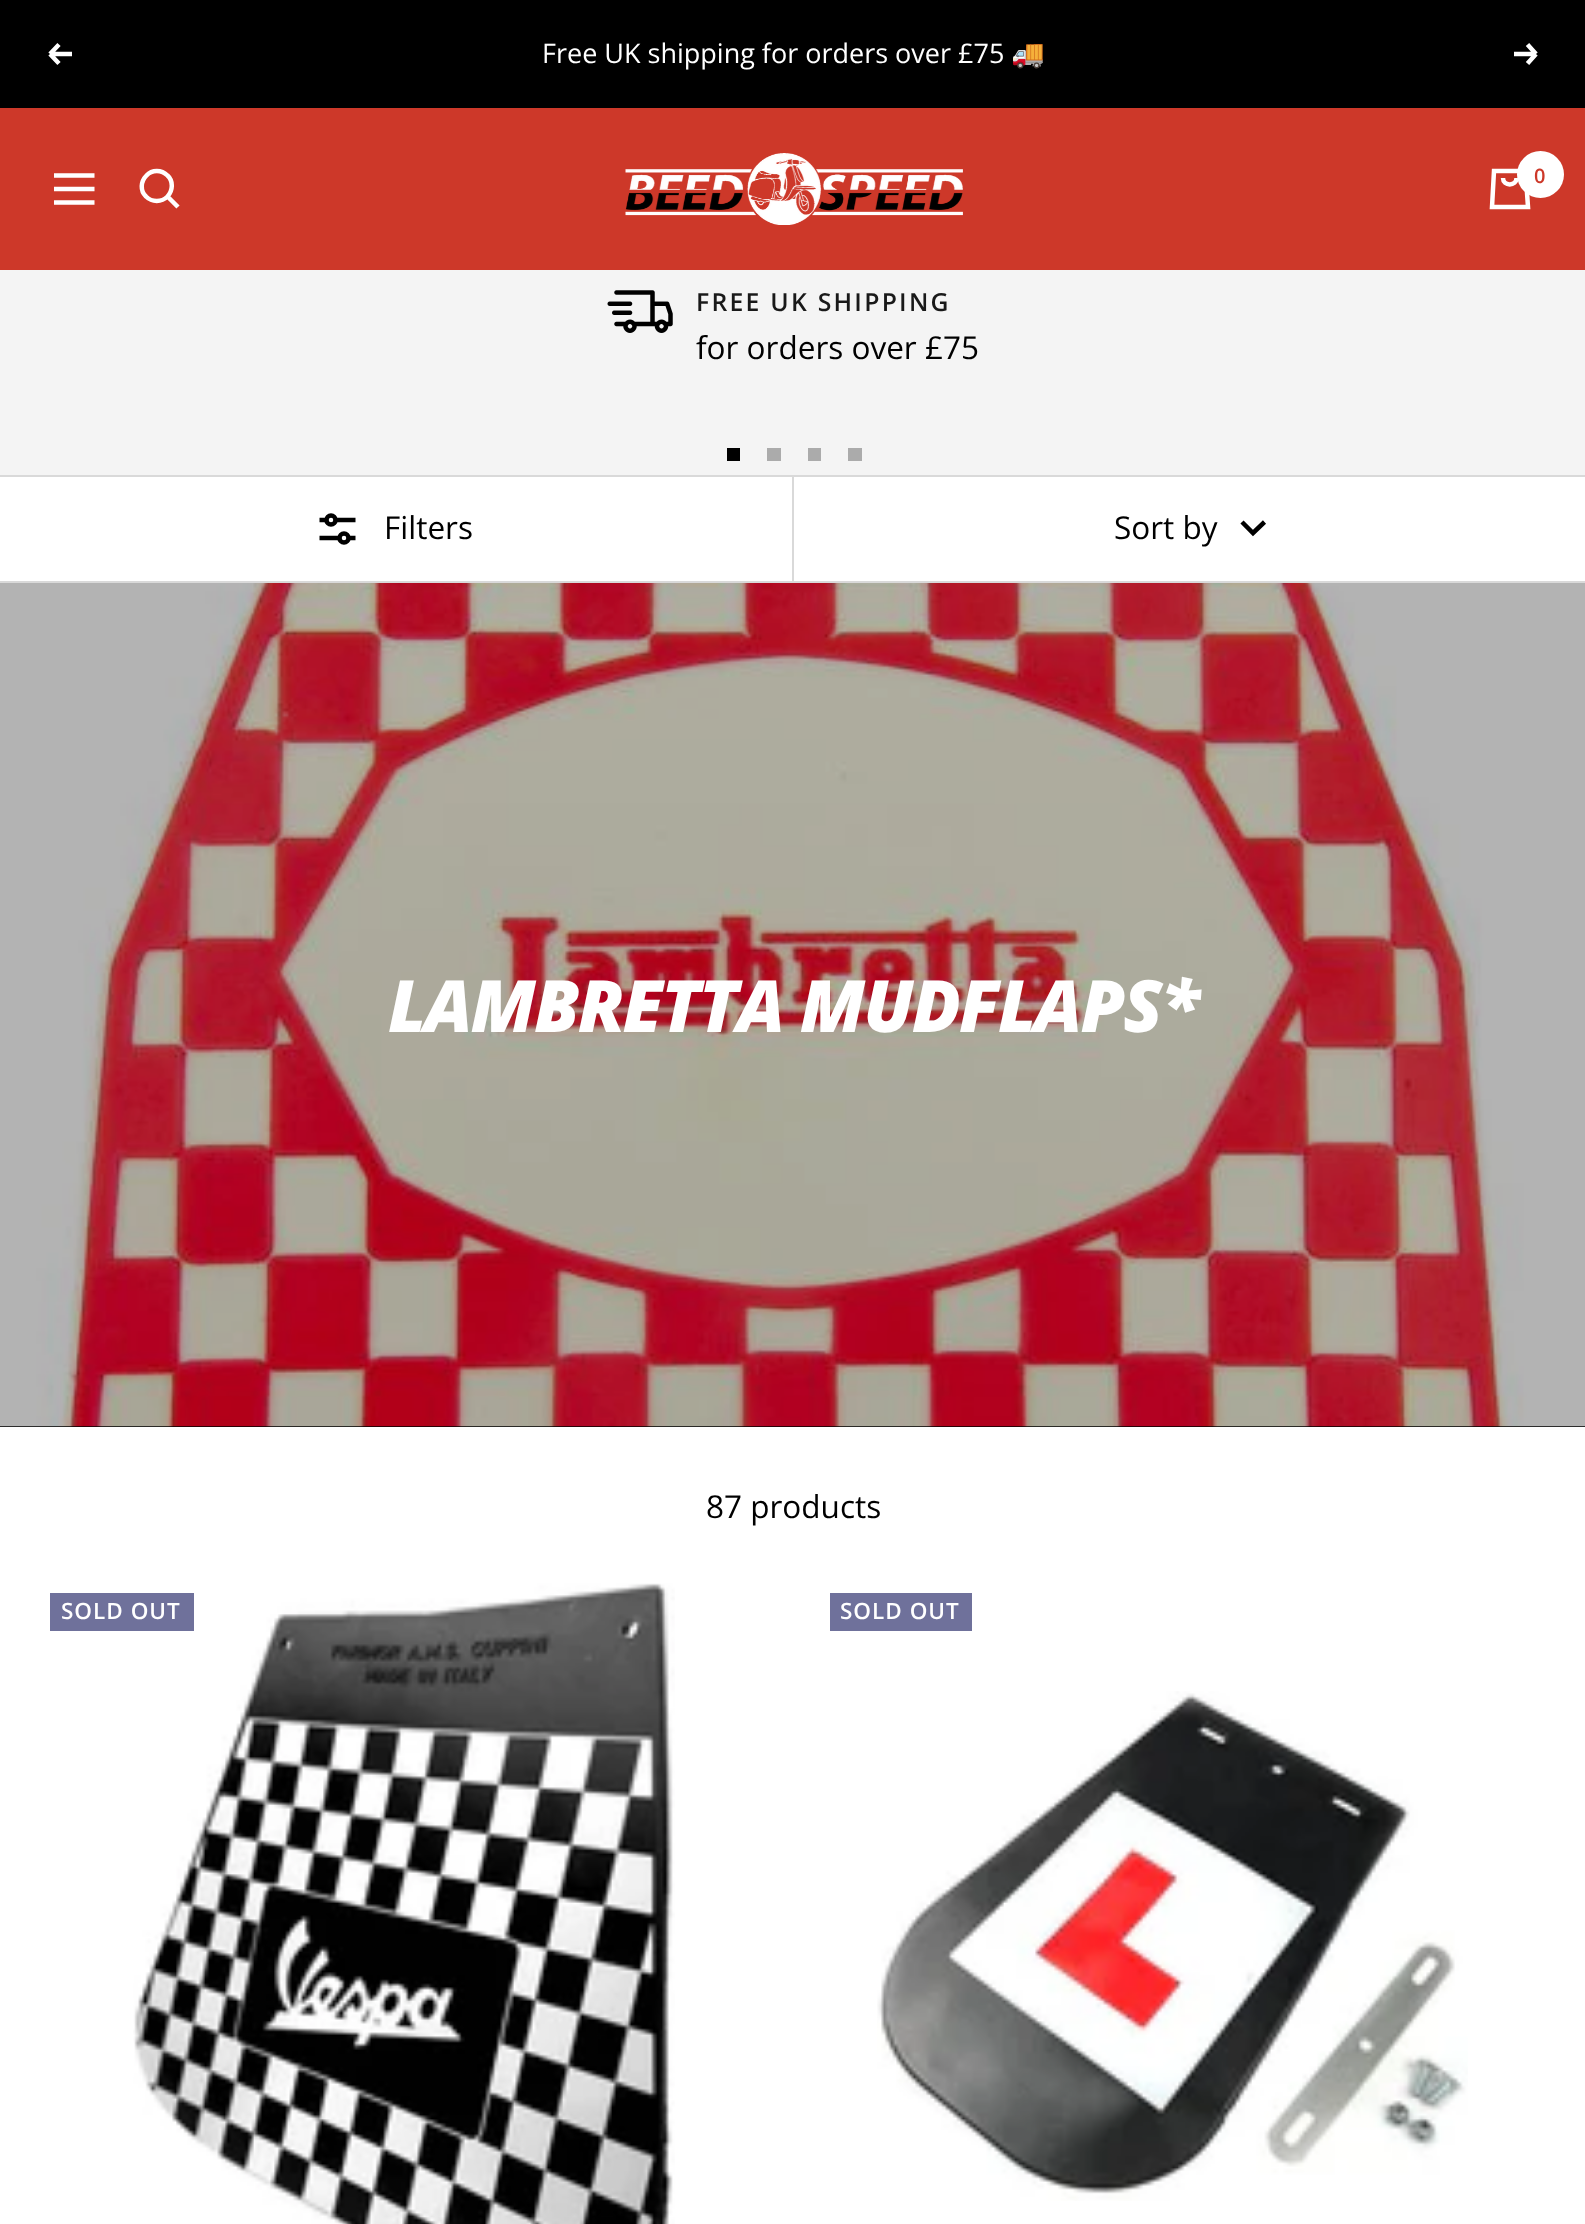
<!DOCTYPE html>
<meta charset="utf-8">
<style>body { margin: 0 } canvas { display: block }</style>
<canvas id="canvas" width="1585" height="2224"></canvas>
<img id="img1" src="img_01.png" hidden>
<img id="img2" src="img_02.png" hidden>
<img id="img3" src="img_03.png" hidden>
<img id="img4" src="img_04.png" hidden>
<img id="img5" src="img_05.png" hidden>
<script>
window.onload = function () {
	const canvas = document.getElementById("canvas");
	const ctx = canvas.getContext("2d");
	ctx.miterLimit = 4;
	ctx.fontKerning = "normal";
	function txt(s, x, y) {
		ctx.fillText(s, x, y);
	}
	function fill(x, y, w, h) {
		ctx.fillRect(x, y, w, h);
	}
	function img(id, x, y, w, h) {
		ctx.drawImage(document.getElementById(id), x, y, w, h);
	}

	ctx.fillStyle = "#FFFFFF";
	fill(0, 0, 1585, 2224);
	ctx.fillStyle = "#000000";
	fill(0, 0, 1585, 108);
	ctx.beginPath();
	ctx.moveTo(72, 54);
	ctx.lineTo(50, 54);
	ctx.moveTo(50, 54);
	ctx.lineTo(59, 63.5);
	ctx.moveTo(50, 54);
	ctx.lineTo(59, 44.5);
	ctx.strokeStyle = "#FFFFFF";
	ctx.lineWidth = 4.5;
	ctx.stroke();
	ctx.beginPath();
	ctx.moveTo(1514, 54);
	ctx.lineTo(1536, 54);
	ctx.moveTo(1536, 54);
	ctx.lineTo(1527.5, 63.5);
	ctx.moveTo(1536, 54);
	ctx.lineTo(1527.5, 44.5);
	ctx.stroke();
	ctx.fillStyle = "#CD3829";
	fill(0, 108, 1585, 162);
	ctx.beginPath();
	ctx.moveTo(54, 175.5);
	ctx.lineTo(94.5, 175.5);
	ctx.moveTo(54, 202.5);
	ctx.lineTo(94.5, 202.5);
	ctx.closePath();
	ctx.moveTo(54, 189);
	ctx.lineTo(94.5, 189);
	ctx.closePath();
	ctx.stroke();
	ctx.beginPath();
	ctx.moveTo(167.5, 196.5);
	ctx.bezierCurveTo(173, 190.5, 173.5, 181, 167.5, 175.5);
	ctx.bezierCurveTo(161.5, 169.5, 152, 169.5, 146.5, 175.5);
	ctx.bezierCurveTo(140.5, 181.5, 140, 191, 146, 196.5);
	ctx.bezierCurveTo(152, 202.5, 161.5, 202.5, 167.5, 196.5);
	ctx.closePath();
	ctx.moveTo(167.5, 196.5);
	ctx.lineTo(178, 207);
	ctx.stroke();
	img("img1", 625, 153, 338, 72);
	ctx.beginPath();
	ctx.moveTo(1494, 171);
	ctx.lineTo(1525.5, 171);
	ctx.lineTo(1528, 207);
	ctx.lineTo(1492, 207);
	ctx.closePath();
	ctx.moveTo(1503, 178);
	ctx.bezierCurveTo(1503, 186.5, 1516.5, 186.5, 1516.5, 178);
	ctx.stroke();
	ctx.fillStyle = "#FFFFFF";
	ctx.beginPath();
	ctx.arc(1540.5, 174.5, 23.5, 0, Math.PI * 2);
	ctx.fill();
	ctx.fillStyle = "#F4F4F4";
	fill(0, 270, 1585, 205);
	img("img2", 607, 290, 66, 43);
	ctx.fillStyle = "#000000";
	fill(727, 448, 13, 13);
	ctx.fillStyle = "#ABABAB";
	fill(767, 448, 14, 13);
	fill(808, 448, 13, 13);
	fill(848, 448, 14, 13);
	ctx.fillStyle = "#D9D9D9";
	fill(0, 475, 1585, 2);
	fill(0, 581, 1585, 2);
	ctx.beginPath();
	ctx.moveTo(319.5, 520);
	ctx.lineTo(355.5, 520);
	ctx.moveTo(319.5, 538);
	ctx.lineTo(355.5, 538);
	ctx.strokeStyle = "#000000";
	ctx.stroke();
	ctx.fillStyle = "#FFFFFF";
	ctx.beginPath();
	ctx.arc(331, 520, 4.5, 0, Math.PI * 2);
	ctx.fill();
	ctx.stroke();
	ctx.beginPath();
	ctx.arc(344, 538, 4.5, 0, Math.PI * 2);
	ctx.fill();
	ctx.stroke();
	ctx.fillStyle = "#D9D9D9";
	fill(792, 475, 2, 108);
	ctx.beginPath();
	ctx.moveTo(1242, 522);
	ctx.lineTo(1253, 533);
	ctx.lineTo(1264.5, 522);
	ctx.stroke();
	ctx.fillStyle = "#000000";
	fill(0, 1426, 1585, 1);
	img("img3", 0, 583, 1585, 844);
	img("img4", 133, 1583, 542, 641);
	ctx.fillStyle = "#6F719B";
	fill(50, 1593, 144, 38);
	fill(830, 1593, 142, 38);
	img("img5", 877, 1691, 591, 510);
	ctx.font = "27px Open Sans";
	ctx.fillStyle = "#FFFFFF";
	txt("Free UK shipping for orders over £75", 542, 63);
	ctx.font = "27px Noto Color Emoji";
	txt("🚚", 1011, 63);
	ctx.font = "600 20px Open Sans";
	ctx.fillStyle = "#CD3829";
	txt("0", 1534, 183);
	ctx.letterSpacing = "2.25px";
	ctx.font = "600 24.75px Open Sans";
	ctx.fillStyle = "#191919";
	txt("FREE UK SHIPPING", 696, 311);
	ctx.letterSpacing = "0px";
	ctx.font = "31.5px Open Sans";
	ctx.fillStyle = "#000000";
	txt("for orders over £75", 696, 359);
	txt("Filters", 384, 539);
	txt("Sort by", 1114, 539);
	ctx.letterSpacing = "-2px";
	ctx.font = "italic 800 72px Open Sans";
	ctx.fillStyle = "#FFFFFF";
	txt("LAMBRETTA MUDFLAPS*", 388, 1032);
	ctx.letterSpacing = "0px";
	ctx.font = "31.5px Open Sans";
	ctx.fillStyle = "#000000";
	txt("87 products", 706, 1518);
	ctx.letterSpacing = "1px";
	ctx.font = "600 22.5px Open Sans";
	ctx.fillStyle = "#FFFFFF";
	txt("SOLD OUT", 61, 1619);
	txt("SOLD OUT", 840, 1619);
};
</script>
